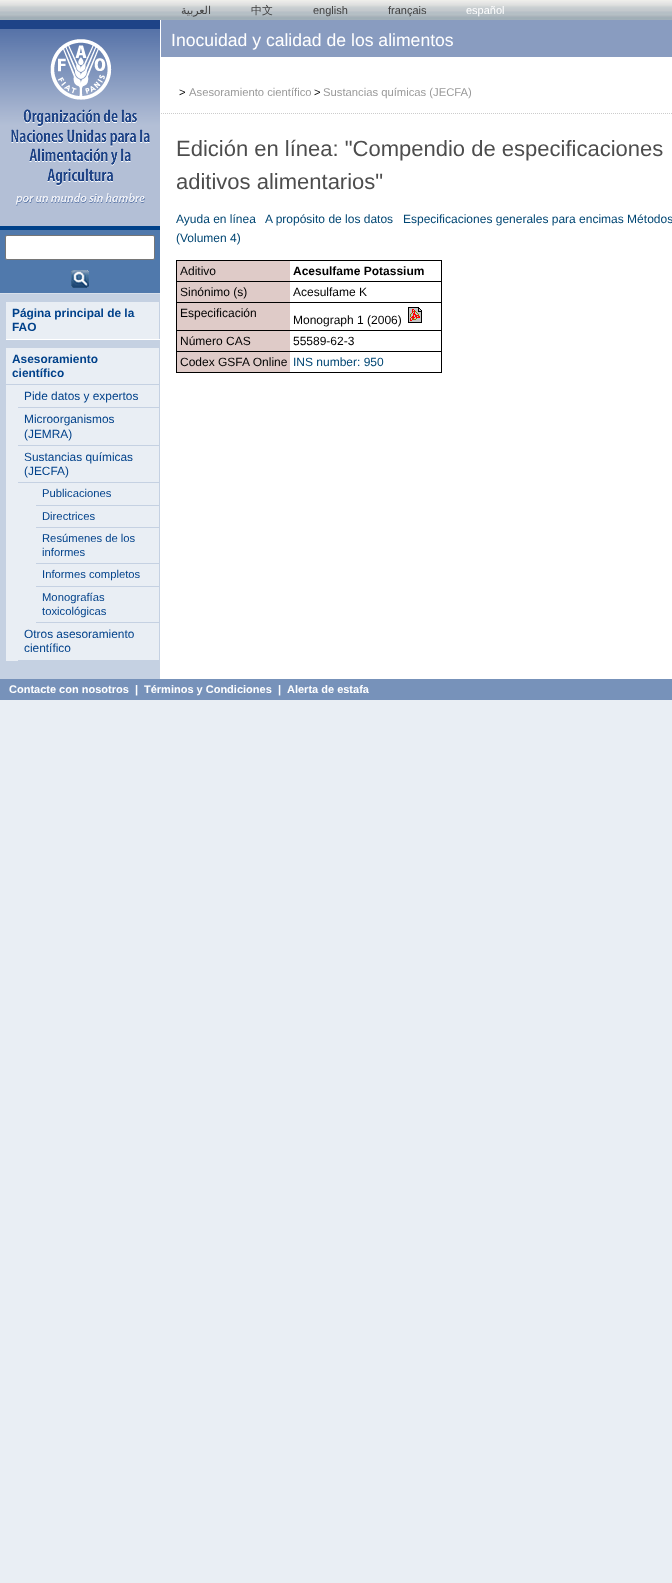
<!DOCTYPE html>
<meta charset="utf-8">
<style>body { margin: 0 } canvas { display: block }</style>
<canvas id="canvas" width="672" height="1583"></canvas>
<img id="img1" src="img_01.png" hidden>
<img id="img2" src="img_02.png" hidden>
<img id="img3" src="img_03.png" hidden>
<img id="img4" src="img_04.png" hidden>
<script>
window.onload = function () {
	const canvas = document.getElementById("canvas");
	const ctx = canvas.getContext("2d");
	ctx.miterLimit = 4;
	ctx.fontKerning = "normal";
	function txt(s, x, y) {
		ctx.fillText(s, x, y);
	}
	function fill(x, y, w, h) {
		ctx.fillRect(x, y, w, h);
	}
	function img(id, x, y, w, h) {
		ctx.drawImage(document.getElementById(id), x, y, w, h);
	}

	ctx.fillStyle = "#E9EEF4";
	fill(0, 0, 672, 1583);
	img("img1", 0, 0, 672, 20);
	ctx.fillStyle = "#FFFFFF";
	fill(161, 57, 511, 622);
	ctx.fillStyle = "#899CC0";
	fill(161, 20, 511, 37);
	ctx.beginPath();
	ctx.moveTo(161, 113.5);
	ctx.lineTo(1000, 113.5);
	ctx.strokeStyle = "#CCCCCC";
	ctx.setLineDash([1, 1]);
	ctx.stroke();
	ctx.fillStyle = "#000000";
	fill(176, 260, 266, 1);
	fill(441, 260, 1, 113);
	fill(176, 372, 266, 1);
	fill(176, 260, 1, 113);
	ctx.fillStyle = "#DFCBC8";
	fill(177, 261, 113, 20);
	ctx.fillStyle = "#000000";
	fill(176, 281, 266, 1);
	fill(176, 302, 266, 1);
	ctx.fillStyle = "#DFCBC8";
	fill(177, 282, 113, 20);
	fill(177, 303, 113, 27);
	img("img2", 408, 307, 14, 16);
	ctx.fillStyle = "#000000";
	fill(176, 330, 266, 1);
	ctx.fillStyle = "#DFCBC8";
	fill(177, 331, 113, 20);
	ctx.fillStyle = "#000000";
	fill(176, 351, 266, 1);
	ctx.fillStyle = "#DFCBC8";
	fill(177, 352, 113, 20);
	ctx.fillStyle = "#C5D1E2";
	fill(0, 294, 160, 385);
	ctx.fillStyle = "#FFFFFF";
	fill(160, 20, 1, 659);
	img("img3", 0, 20, 160, 206);
	ctx.fillStyle = "#5079AC";
	fill(0, 230, 160, 63);
	ctx.fillStyle = "#00418A";
	fill(0, 226, 160, 4);
	ctx.fillStyle = "#D7DFEA";
	fill(0, 293, 160, 1);
	ctx.fillStyle = "#FFFFFF";
	ctx.beginPath();
	ctx.roundRect(5.5, 235.5, 149, 24, 1.5);
	ctx.fill();
	ctx.strokeStyle = "#767676";
	ctx.setLineDash([]);
	ctx.stroke();
	img("img4", 71, 270, 18, 18);
	fill(6, 339, 154, 1);
	ctx.fillStyle = "#E9EEF4";
	fill(6, 302, 153, 37);
	fill(6, 348, 153, 36);
	fill(6, 385, 153, 276);
	ctx.fillStyle = "#C5D1E2";
	fill(18, 407, 142, 1);
	fill(18, 445, 142, 1);
	fill(18, 482, 142, 1);
	fill(36, 505, 124, 1);
	fill(36, 527, 124, 1);
	fill(36, 563, 124, 1);
	fill(36, 586, 124, 1);
	fill(36, 622, 124, 1);
	fill(18, 660, 142, 1);
	ctx.fillStyle = "#7792BA";
	fill(0, 679, 672, 21);
	ctx.direction = "rtl";
	ctx.font = "11px DejaVu Sans";
	ctx.fillStyle = "#404040";
	txt("العربية", 211, 14);
	ctx.direction = "ltr";
	ctx.font = "500 11px WenQuanYi Zen Hei";
	txt("中文", 251, 14);
	ctx.font = "11px Liberation Sans";
	txt("english", 313, 14);
	txt("français", 388, 14);
	ctx.fillStyle = "#FFFFFF";
	txt("español", 466, 14);
	ctx.font = "17.6px Liberation Sans";
	txt("Inocuidad y calidad de los alimentos", 171, 46);
	ctx.font = "11.25px Liberation Sans";
	ctx.fillStyle = "#000000";
	txt(">", 179, 96);
	ctx.fillStyle = "#999999";
	txt("Asesoramiento científico", 189, 96);
	ctx.fillStyle = "#000000";
	txt(">", 314, 96);
	ctx.fillStyle = "#999999";
	txt("Sustancias químicas (JECFA)", 323, 96);
	ctx.font = "22px Liberation Sans";
	ctx.fillStyle = "#4D4D4D";
	txt("Edición en línea: \"Compendio de especificaciones", 176, 156);
	txt("aditivos alimentarios\"", 176, 189);
	ctx.font = "12px Liberation Sans";
	ctx.fillStyle = "#004673";
	txt("Ayuda en línea", 176, 223);
	txt("A propósito de los datos", 265, 223);
	txt("Especificaciones generales para encimas Métodos", 403, 223);
	txt("(Volumen 4)", 176, 242);
	ctx.fillStyle = "#000000";
	txt("Aditivo", 180, 275);
	ctx.font = "bold 12px Liberation Sans";
	txt("Acesulfame Potassium", 293, 275);
	ctx.font = "12px Liberation Sans";
	txt("Sinónimo (s)", 180, 296);
	txt("Acesulfame K", 293, 296);
	txt("Especificación", 180, 317);
	txt("Monograph 1 (2006)", 293, 324);
	txt("Número CAS", 180, 345);
	txt("55589-62-3", 293, 345);
	txt("Codex GSFA Online", 180, 366);
	ctx.fillStyle = "#004673";
	txt("INS number: 950", 293, 366);
	ctx.font = "bold 11.9px Liberation Sans";
	ctx.fillStyle = "#00418A";
	txt("Página principal de la", 12, 317);
	txt("FAO", 12, 331);
	txt("Asesoramiento", 12, 363);
	txt("científico", 12, 377);
	ctx.font = "11.9px Liberation Sans";
	txt("Pide datos y expertos", 24, 400);
	txt("Microorganismos", 24, 423);
	txt("(JEMRA)", 24, 438);
	txt("Sustancias químicas", 24, 461);
	txt("(JECFA)", 24, 475);
	ctx.font = "11.25px Liberation Sans";
	txt("Publicaciones", 42, 497);
	txt("Directrices", 42, 520);
	txt("Resúmenes de los", 42, 542);
	txt("informes", 42, 556);
	txt("Informes completos", 42, 578);
	txt("Monografías", 42, 601);
	txt("toxicológicas", 42, 615);
	ctx.font = "11.9px Liberation Sans";
	txt("Otros asesoramiento", 24, 638);
	txt("científico", 24, 652);
	ctx.font = "bold 11px Liberation Sans";
	ctx.fillStyle = "#FFFFFF";
	txt("Contacte con nosotros", 9, 693);
	txt("|", 135, 693);
	txt("Términos y Condiciones", 144, 693);
	txt("|", 278, 693);
	txt("Alerta de estafa", 287, 693);
};
</script>
